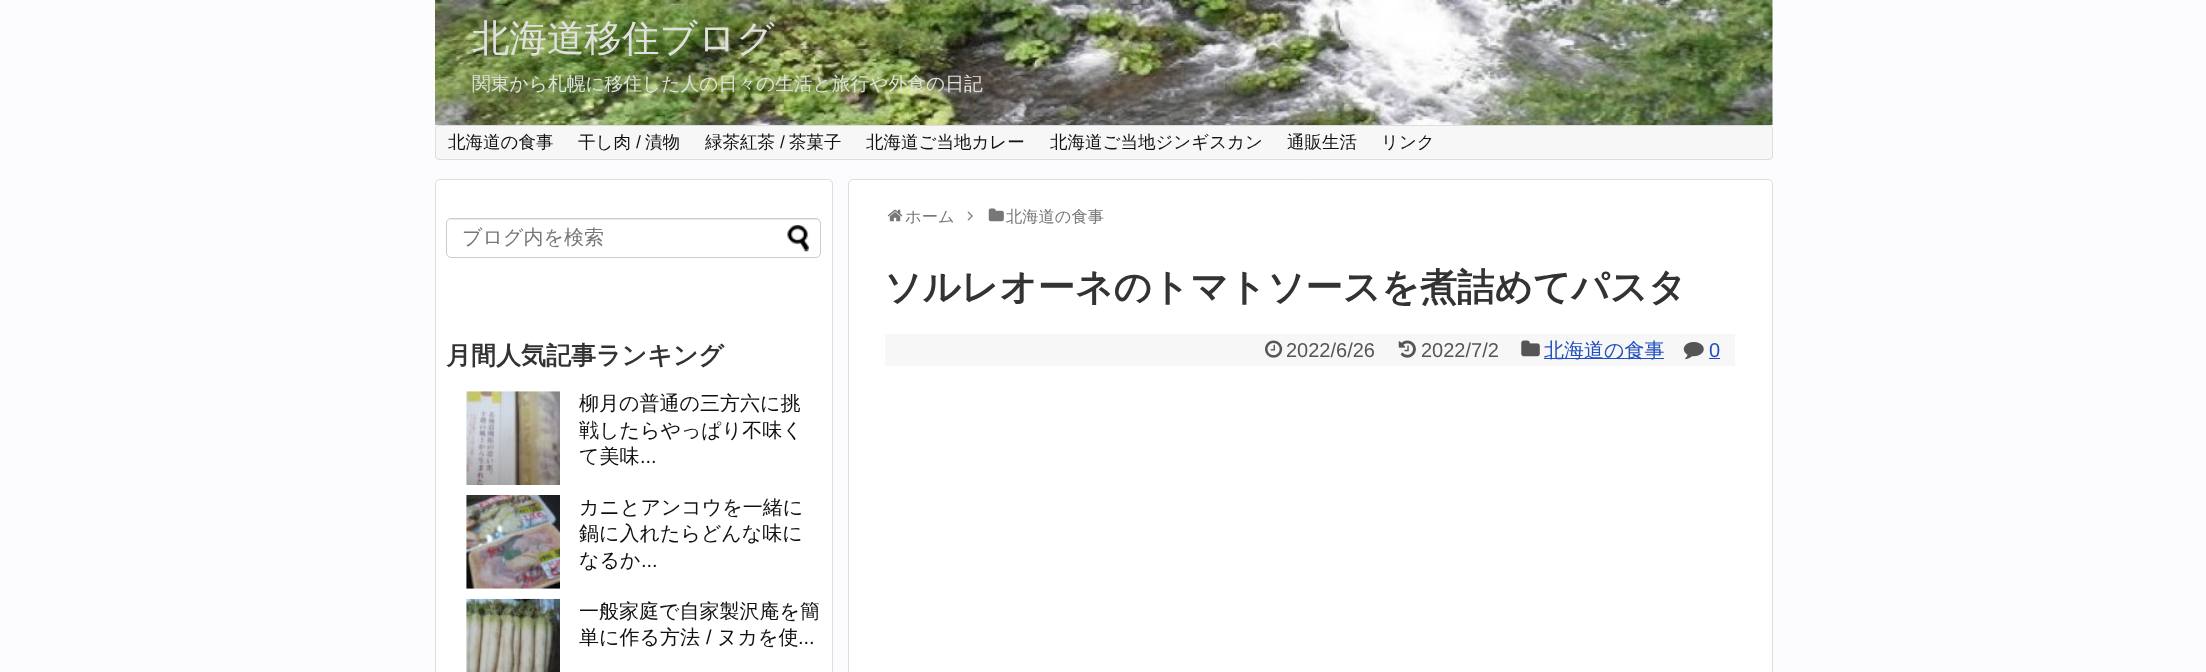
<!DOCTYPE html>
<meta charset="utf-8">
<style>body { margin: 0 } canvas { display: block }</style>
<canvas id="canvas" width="2206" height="672"></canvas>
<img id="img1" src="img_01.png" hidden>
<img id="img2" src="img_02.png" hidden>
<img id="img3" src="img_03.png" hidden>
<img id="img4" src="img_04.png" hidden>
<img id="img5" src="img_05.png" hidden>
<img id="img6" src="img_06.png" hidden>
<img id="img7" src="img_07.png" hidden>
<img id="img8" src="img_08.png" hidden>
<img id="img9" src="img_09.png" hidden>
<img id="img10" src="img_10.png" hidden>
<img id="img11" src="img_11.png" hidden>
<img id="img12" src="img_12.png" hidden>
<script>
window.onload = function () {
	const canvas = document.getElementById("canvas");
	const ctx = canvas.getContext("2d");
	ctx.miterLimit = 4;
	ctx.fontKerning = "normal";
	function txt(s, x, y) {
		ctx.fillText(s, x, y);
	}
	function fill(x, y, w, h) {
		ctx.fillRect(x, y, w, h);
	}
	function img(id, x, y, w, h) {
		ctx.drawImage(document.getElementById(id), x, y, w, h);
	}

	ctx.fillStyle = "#FCFCFF";
	fill(0, 0, 2206, 672);
	img("img1", 435, 0, 1338, 125);
	ctx.fillStyle = "#F7F7F7";
	ctx.beginPath();
	ctx.roundRect(435.5, 125.5, 1337, 34, 3.5);
	ctx.fill();
	ctx.strokeStyle = "#DDDDDD";
	ctx.stroke();
	ctx.fillStyle = "#FFFFFF";
	ctx.beginPath();
	ctx.roundRect(435.5, 179.5, 397, 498, 4.5);
	ctx.fill();
	ctx.stroke();
	ctx.fillStyle = "#ECECEC";
	ctx.beginPath();
	ctx.moveTo(451, 220);
	ctx.lineTo(816, 220);
	ctx.bezierCurveTo(818, 220, 820, 222, 820, 224);
	ctx.bezierCurveTo(820, 221, 819, 219, 816, 219);
	ctx.lineTo(452, 219);
	ctx.bezierCurveTo(449, 219, 448, 221, 448, 224);
	ctx.bezierCurveTo(448, 222, 449, 220, 451, 220);
	ctx.closePath();
	ctx.fill();
	ctx.beginPath();
	ctx.roundRect(446.5, 218.5, 374, 39, 4.5);
	ctx.strokeStyle = "#CCCCCC";
	ctx.stroke();
	img("img2", 787, 225, 22, 27);
	img("img3", 466, 391, 94, 94);
	img("img4", 466, 495, 94, 94);
	img("img5", 466, 598, 94, 74);
	ctx.fillStyle = "#FFFFFF";
	ctx.beginPath();
	ctx.roundRect(848.5, 179.5, 924, 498, 4.5);
	ctx.fill();
	ctx.strokeStyle = "#DDDDDD";
	ctx.stroke();
	img("img6", 887, 209, 16, 13);
	img("img7", 967, 211, 6, 10);
	img("img8", 988, 208, 16, 14);
	ctx.fillStyle = "#F7F7F7";
	fill(885, 334, 850, 32);
	img("img9", 1265, 340, 18, 18);
	img("img10", 1398, 340, 18, 18);
	img("img11", 1521, 340, 19, 17);
	ctx.fillStyle = "#204DBF";
	fill(1544, 358, 120, 1);
	img("img12", 1683, 342, 21, 18);
	fill(1709, 358, 11, 1);
	ctx.font = "500 37.5px WenQuanYi Zen Hei";
	ctx.fillStyle = "#E0E0E0";
	txt("北海道移住ブログ", 472, 51);
	ctx.font = "500 18.75px WenQuanYi Zen Hei";
	txt("関東から札幌に移住した人の日々の生活と旅行や外食の日記", 472, 90);
	ctx.font = "500 17.5px WenQuanYi Zen Hei";
	ctx.fillStyle = "#111111";
	txt("北海道の食事", 448, 148);
	txt("干し肉", 578, 148);
	ctx.font = "17.5px Liberation Sans";
	txt("/", 636, 148);
	ctx.font = "500 17.5px WenQuanYi Zen Hei";
	txt("漬物", 645, 148);
	txt("緑茶紅茶", 705, 148);
	ctx.font = "17.5px Liberation Sans";
	txt("/", 780, 148);
	ctx.font = "500 17.5px WenQuanYi Zen Hei";
	txt("茶菓子", 789, 148);
	txt("北海道ご当地カレー", 866, 148);
	txt("北海道ご当地ジンギスカン", 1050, 148);
	txt("通販生活", 1287, 148);
	txt("リンク", 1381, 148);
	ctx.font = "500 20px WenQuanYi Zen Hei";
	ctx.fillStyle = "#777777";
	txt("ブログ内を検索", 462, 244);
	ctx.font = "bold 25px WenQuanYi Zen Hei";
	ctx.fillStyle = "#333333";
	txt("月間人気記事ランキング", 446, 364);
	ctx.font = "500 20px WenQuanYi Zen Hei";
	ctx.fillStyle = "#111111";
	txt("柳月の普通の三方六に挑", 579, 410);
	txt("戦したらやっぱり不味く", 579, 437);
	txt("て美味", 579, 463);
	ctx.font = "20px Liberation Sans";
	txt("...", 640, 463);
	ctx.font = "500 20px WenQuanYi Zen Hei";
	txt("カニとアンコウを一緒に", 579, 514);
	txt("鍋に入れたらどんな味に", 579, 540);
	txt("なるか", 579, 567);
	ctx.font = "20px Liberation Sans";
	txt("...", 641, 567);
	ctx.font = "500 20px WenQuanYi Zen Hei";
	txt("一般家庭で自家製沢庵を簡", 579, 618);
	txt("単に作る方法", 579, 644);
	ctx.font = "20px Liberation Sans";
	txt("/", 706, 644);
	ctx.font = "500 20px WenQuanYi Zen Hei";
	txt("ヌカを使", 717, 644);
	ctx.font = "20px Liberation Sans";
	txt("...", 798, 644);
	ctx.font = "500 16.25px WenQuanYi Zen Hei";
	ctx.fillStyle = "#777777";
	txt("ホーム", 905, 222);
	txt("北海道の食事", 1006, 222);
	ctx.font = "bold 37.5px WenQuanYi Zen Hei";
	ctx.fillStyle = "#333333";
	txt("ソルレオーネのトマトソースを煮詰めてパスタ", 884, 300);
	ctx.font = "20px Liberation Sans";
	ctx.fillStyle = "#555555";
	txt("2022/6/26", 1286, 357);
	txt("2022/7/2", 1421, 357);
	ctx.font = "500 20px WenQuanYi Zen Hei";
	ctx.fillStyle = "#204DBF";
	txt("北海道の食事", 1544, 357);
	ctx.font = "20px Liberation Sans";
	txt("0", 1709, 357);
};
</script>
